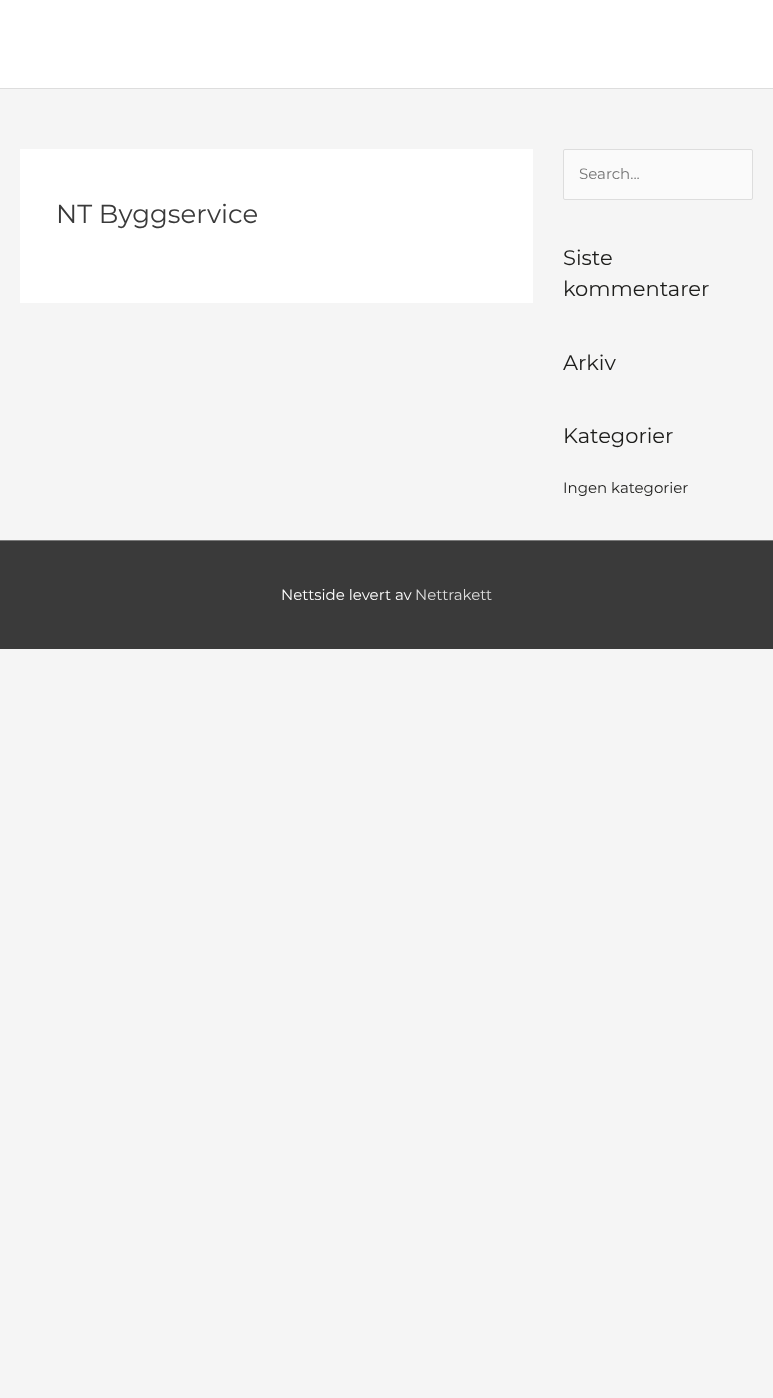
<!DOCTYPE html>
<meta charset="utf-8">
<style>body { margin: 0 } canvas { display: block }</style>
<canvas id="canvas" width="773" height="1398"></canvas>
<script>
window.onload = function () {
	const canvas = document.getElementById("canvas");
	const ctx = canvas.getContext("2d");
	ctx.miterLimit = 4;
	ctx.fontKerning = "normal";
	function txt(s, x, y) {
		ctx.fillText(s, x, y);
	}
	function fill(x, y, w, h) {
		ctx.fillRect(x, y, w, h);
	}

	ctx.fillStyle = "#F5F5F5";
	fill(0, 0, 773, 1398);
	ctx.fillStyle = "#FFFFFF";
	fill(0, 0, 773, 88);
	ctx.fillStyle = "#DDDDDD";
	fill(0, 88, 773, 1);
	ctx.fillStyle = "#FFFFFF";
	fill(20, 149, 513, 154);
	ctx.fillStyle = "#FAFAFA";
	ctx.beginPath();
	ctx.roundRect(563.5, 149.5, 189, 50, 1.5);
	ctx.fill();
	ctx.strokeStyle = "#DDDDDD";
	ctx.stroke();
	ctx.fillStyle = "#7A7A7A";
	fill(0, 540, 773, 1);
	ctx.fillStyle = "#3A3A3A";
	fill(0, 541, 773, 108);
	ctx.font = "100 26px Montserrat";
	txt("NT Byggservice", 56, 223);
	ctx.font = "100 15px Montserrat";
	ctx.fillStyle = "#757575";
	txt("Search...", 579, 179);
	ctx.font = "100 21px Montserrat";
	ctx.fillStyle = "#1D1D1B";
	txt("Siste", 563, 265);
	txt("kommentarer", 563, 296);
	txt("Arkiv", 563, 370);
	txt("Kategorier", 563, 443);
	ctx.font = "100 15px Montserrat";
	txt("Ingen kategorier", 563, 493);
	ctx.fillStyle = "#FFFFFF";
	txt("Nettside levert av", 281, 600);
	ctx.fillStyle = "#DDDDDD";
	txt("Nettrakett", 415, 600);
};
</script>
